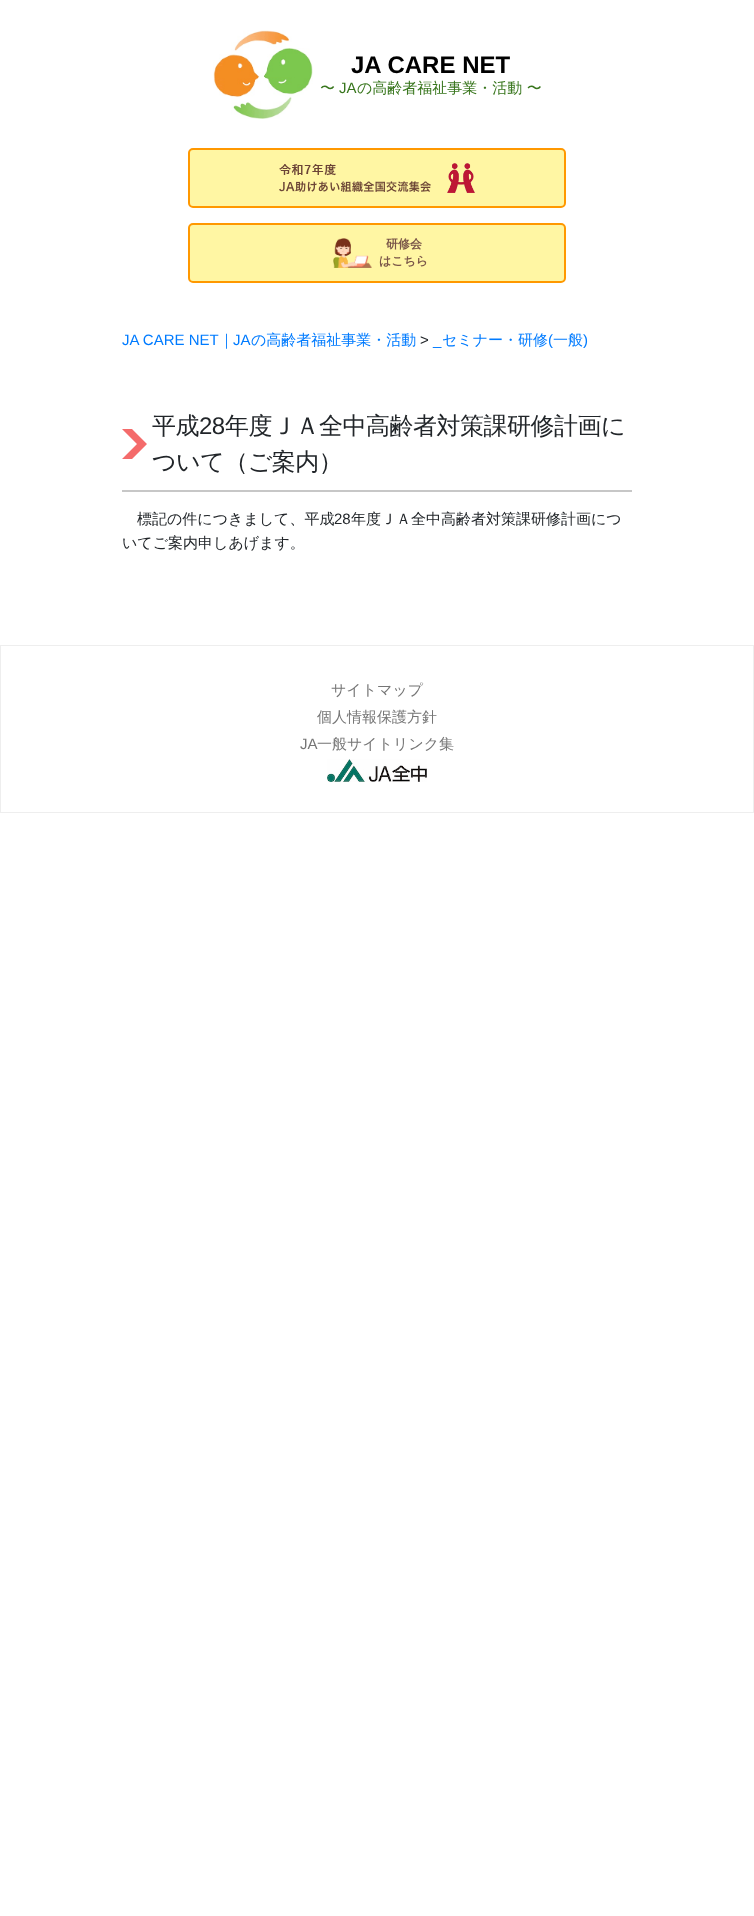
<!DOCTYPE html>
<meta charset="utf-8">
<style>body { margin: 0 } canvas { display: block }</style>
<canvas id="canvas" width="754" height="1916"></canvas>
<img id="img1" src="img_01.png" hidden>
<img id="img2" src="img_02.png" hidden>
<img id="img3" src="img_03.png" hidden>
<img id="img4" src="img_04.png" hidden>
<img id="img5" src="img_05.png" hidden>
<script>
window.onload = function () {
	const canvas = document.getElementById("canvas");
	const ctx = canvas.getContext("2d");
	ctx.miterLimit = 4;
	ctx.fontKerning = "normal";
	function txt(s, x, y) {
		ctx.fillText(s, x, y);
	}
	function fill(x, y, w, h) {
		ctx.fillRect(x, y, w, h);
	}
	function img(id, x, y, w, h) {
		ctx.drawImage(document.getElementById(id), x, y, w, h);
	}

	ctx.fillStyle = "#FFFFFF";
	fill(0, 0, 754, 1916);
	img("img1", 213, 30, 100, 89);
	ctx.fillStyle = "#FFF6A3";
	ctx.beginPath();
	ctx.roundRect(189, 149, 376, 58, 4);
	ctx.fill();
	ctx.strokeStyle = "#FF9800";
	ctx.lineWidth = 2;
	ctx.stroke();
	img("img2", 279, 163, 152, 29);
	img("img3", 447, 163, 28, 30);
	ctx.beginPath();
	ctx.roundRect(189, 224, 376, 58, 4);
	ctx.fill();
	ctx.stroke();
	img("img4", 333, 238, 39, 30);
	ctx.fillStyle = "#C7C7C7";
	fill(122, 490, 510, 2);
	ctx.fillStyle = "#F46B6B";
	ctx.beginPath();
	ctx.moveTo(122, 429);
	ctx.lineTo(132, 429);
	ctx.lineTo(147, 444);
	ctx.lineTo(137, 444);
	ctx.closePath();
	ctx.moveTo(137, 444);
	ctx.lineTo(147, 444);
	ctx.lineTo(132, 459);
	ctx.lineTo(122, 459);
	ctx.closePath();
	ctx.fill();
	ctx.strokeStyle = "#EEEEEE";
	ctx.lineWidth = 1;
	ctx.strokeRect(0.5, 645.5, 753, 167);
	img("img5", 327, 759, 100, 23);
	ctx.font = "bold 24px Liberation Sans";
	ctx.fillStyle = "#000000";
	txt("JA CARE NET", 351, 73);
	ctx.font = "500 15px WenQuanYi Zen Hei";
	ctx.fillStyle = "#38761D";
	txt("〜", 320, 93);
	ctx.font = "15px Liberation Sans";
	txt("JA", 339, 93);
	ctx.font = "500 15px WenQuanYi Zen Hei";
	txt("の高齢者福祉事業・活動 〜", 357, 93);
	ctx.font = "bold 12px WenQuanYi Zen Hei";
	ctx.fillStyle = "#795548";
	txt("研修会", 386, 248);
	txt("はこちら", 379, 265);
	ctx.font = "15px Liberation Sans";
	ctx.fillStyle = "#007BFF";
	txt("JA CARE NET", 122, 345);
	ctx.font = "500 15px WenQuanYi Zen Hei";
	txt("｜", 219, 345);
	ctx.font = "15px Liberation Sans";
	txt("JA", 233, 345);
	ctx.font = "500 15px WenQuanYi Zen Hei";
	txt("の高齢者福祉事業・活動", 251, 345);
	ctx.font = "15px Liberation Sans";
	ctx.fillStyle = "#212529";
	txt(">", 420, 345);
	ctx.font = "500 15px WenQuanYi Zen Hei";
	ctx.fillStyle = "#007BFF";
	txt("セミナー・研修", 442, 345);
	ctx.font = "15px Liberation Sans";
	txt("(", 548, 345);
	ctx.font = "500 15px WenQuanYi Zen Hei";
	txt("一般", 553, 345);
	ctx.font = "15px Liberation Sans";
	txt(")", 583, 345);
	txt("_", 433, 345);
	ctx.letterSpacing = "-0.5px";
	ctx.font = "500 24px WenQuanYi Zen Hei";
	ctx.fillStyle = "#212529";
	txt("平成", 152, 434);
	ctx.font = "24px Liberation Sans";
	txt("28", 199, 434);
	ctx.font = "500 24px WenQuanYi Zen Hei";
	txt("年度ＪＡ全中高齢者対策課研修計画に", 225, 434);
	txt("ついて（ご案内）", 152, 470);
	ctx.letterSpacing = "0px";
	ctx.font = "500 15px WenQuanYi Zen Hei";
	txt("標記の件につきまして、平成", 137, 524);
	ctx.font = "15px Liberation Sans";
	txt("28", 334, 524);
	ctx.font = "500 15px WenQuanYi Zen Hei";
	txt("年度ＪＡ全中高齢者対策課研修計画につ", 351, 524);
	txt("いてご案内申しあげます。", 122, 548);
	ctx.fillStyle = "#767676";
	txt("サイトマップ", 331, 695);
	txt("個人情報保護方針", 317, 722);
	ctx.font = "15px Liberation Sans";
	txt("JA", 300, 749);
	ctx.font = "500 15px WenQuanYi Zen Hei";
	txt("一般サイトリンク集", 317, 749);
};
</script>
